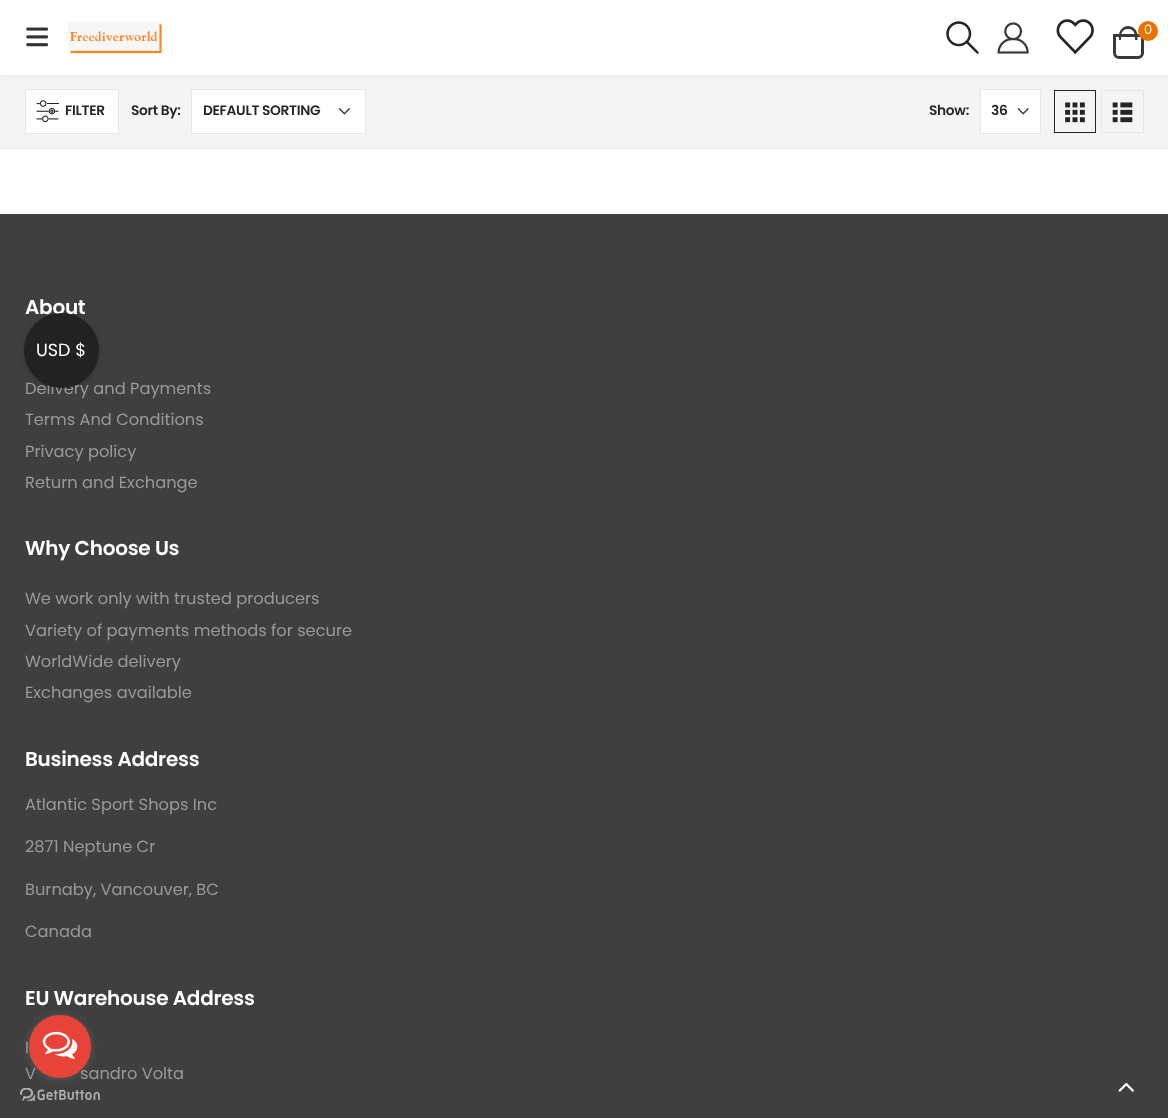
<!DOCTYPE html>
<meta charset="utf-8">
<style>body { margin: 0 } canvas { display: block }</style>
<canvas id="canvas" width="1168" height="1118"></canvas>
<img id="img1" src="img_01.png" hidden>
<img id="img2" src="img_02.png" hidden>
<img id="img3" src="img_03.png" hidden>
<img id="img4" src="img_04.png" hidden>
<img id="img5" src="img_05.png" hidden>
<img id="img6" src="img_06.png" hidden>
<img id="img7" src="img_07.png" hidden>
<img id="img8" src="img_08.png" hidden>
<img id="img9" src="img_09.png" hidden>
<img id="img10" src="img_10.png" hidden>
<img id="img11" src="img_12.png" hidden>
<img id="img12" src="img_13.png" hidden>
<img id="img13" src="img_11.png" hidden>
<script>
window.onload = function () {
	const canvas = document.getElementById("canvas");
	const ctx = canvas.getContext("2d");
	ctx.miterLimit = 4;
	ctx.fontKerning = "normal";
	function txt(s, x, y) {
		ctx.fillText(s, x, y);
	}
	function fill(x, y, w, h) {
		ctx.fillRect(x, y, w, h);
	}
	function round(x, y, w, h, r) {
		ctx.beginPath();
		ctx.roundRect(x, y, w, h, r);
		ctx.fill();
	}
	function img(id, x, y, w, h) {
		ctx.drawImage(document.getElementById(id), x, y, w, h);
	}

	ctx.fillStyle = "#FFFFFF";
	fill(0, 0, 1168, 1118);
	ctx.fillStyle = "#F4F4F4";
	fill(0, 75, 1168, 73);
	ctx.fillStyle = "rgba(0, 0, 0, 0.06)";
	ctx.filter = "blur(2px)";
	ctx.beginPath();
	ctx.rect(0, 0, 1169, 75);
	ctx.fill();
	ctx.filter = "none";
	ctx.fillStyle = "#FFFFFF";
	fill(0, 0, 1168, 75);
	img("img1", 26, 27, 23, 20);
	img("img2", 68, 21, 94, 33);
	img("img3", 946, 21, 33, 33);
	img("img4", 997, 22, 32, 32);
	img("img5", 1056, 19, 38, 36);
	ctx.beginPath();
	ctx.roundRect(1114.5, 35.5, 28, 22, [0, 0, 4.5, 4.5]);
	ctx.strokeStyle = "#383B3E";
	ctx.lineWidth = 3;
	ctx.stroke();
	ctx.fillStyle = "#383B3E";
	ctx.beginPath();
	ctx.moveTo(1128, 26);
	ctx.bezierCurveTo(1133.5, 26, 1137.5, 30.5, 1137.5, 35.5);
	ctx.lineTo(1137.5, 40);
	ctx.lineTo(1119, 40);
	ctx.lineTo(1119, 35.5);
	ctx.bezierCurveTo(1119, 30.5, 1123, 26, 1128, 26);
	ctx.closePath();
	ctx.moveTo(1128, 29);
	ctx.bezierCurveTo(1135, 29, 1135, 35, 1135, 40);
	ctx.lineTo(1121, 40);
	ctx.bezierCurveTo(1121, 35, 1121, 29, 1128, 29);
	ctx.closePath();
	ctx.fill("evenodd");
	ctx.fillStyle = "#EC7200";
	ctx.beginPath();
	ctx.arc(1148, 31, 10, 0, Math.PI * 2);
	ctx.fill();
	ctx.fillStyle = "#E7E7E7";
	fill(0, 148, 1168, 1);
	ctx.fillStyle = "#FFFFFF";
	ctx.beginPath();
	ctx.rect(25.5, 89.5, 93, 44);
	ctx.fill();
	ctx.strokeStyle = "#E7E7E7";
	ctx.lineWidth = 1;
	ctx.stroke();
	img("img6", 36, 100, 23, 23);
	fill(192, 90, 173, 43);
	img("img7", 338, 108, 12, 7);
	ctx.strokeRect(191.5, 89.5, 174, 44);
	fill(981, 90, 59, 43);
	img("img8", 1017, 108, 12, 7);
	ctx.strokeRect(980.5, 89.5, 60, 44);
	ctx.strokeStyle = "#222529";
	ctx.strokeRect(1054.5, 90.5, 41, 42);
	img("img9", 1065, 102, 20, 21);
	ctx.strokeStyle = "#E7E7E7";
	ctx.strokeRect(1101.5, 90.5, 42, 42);
	img("img10", 1112, 102, 21, 21);
	ctx.fillStyle = "#403F3F";
	fill(0, 214, 1168, 904);
	ctx.fillStyle = "rgba(0, 0, 0, 0.2)";
	ctx.filter = "blur(2.5px)";
	ctx.beginPath();
	ctx.roundRect(24, 314, 75, 75, 37.5);
	ctx.fill();
	ctx.filter = "none";
	img("img11", 20, 1088, 80, 13);
	ctx.fillStyle = "rgba(136, 136, 136, 0.4)";
	ctx.filter = "blur(4.5px)";
	ctx.beginPath();
	ctx.roundRect(29, 1016, 62, 63, 31);
	ctx.fill();
	ctx.filter = "none";
	img("img12", 1118, 1083, 16, 9);
	ctx.font = "13px Poppins";
	ctx.fillStyle = "#FFFFFF";
	txt("0", 1144, 34);
	ctx.letterSpacing = "-0.3px";
	ctx.font = "600 13.75px Poppins";
	ctx.fillStyle = "#222529";
	txt("FILTER", 65, 115);
	txt("Sort By:", 131, 115);
	txt("DEFAULT SORTING", 203, 115);
	txt("Show:", 929, 115);
	txt("36", 991, 115);
	ctx.letterSpacing = "-0.25px";
	ctx.font = "600 20px Poppins";
	ctx.fillStyle = "#FFFFFF";
	txt("About", 25, 314);
	ctx.letterSpacing = "0px";
	ctx.font = "16.25px Poppins";
	ctx.fillStyle = "#999999";
	txt("Delivery and Payments", 25, 394);
	txt("Terms And Conditions", 25, 425);
	txt("Privacy policy", 25, 457);
	txt("Return and Exchange", 25, 488);
	ctx.letterSpacing = "-0.25px";
	ctx.font = "600 20px Poppins";
	ctx.fillStyle = "#FFFFFF";
	txt("Why Choose Us", 25, 555);
	ctx.letterSpacing = "0px";
	ctx.font = "16.25px Poppins";
	ctx.fillStyle = "#999999";
	txt("We work only with trusted producers", 25, 604);
	txt("Variety of payments methods for secure", 25, 636);
	txt("WorldWide delivery", 25, 667);
	txt("Exchanges available", 25, 698);
	ctx.letterSpacing = "-0.25px";
	ctx.font = "600 20px Poppins";
	ctx.fillStyle = "#FFFFFF";
	txt("Business Address", 25, 766);
	ctx.letterSpacing = "0px";
	ctx.font = "16.25px Poppins";
	ctx.fillStyle = "#999999";
	txt("Atlantic Sport Shops Inc", 25, 810);
	txt("2871 Neptune Cr", 25, 852);
	txt("Burnaby, Vancouver, BC", 25, 895);
	txt("Canada", 25, 937);
	ctx.letterSpacing = "-0.25px";
	ctx.font = "600 20px Poppins";
	ctx.fillStyle = "#FFFFFF";
	txt("EU Warehouse Address", 25, 1005);
	ctx.letterSpacing = "0px";
	ctx.font = "16.25px Poppins";
	ctx.fillStyle = "#999999";
	txt("I", 25, 1053);
	txt("V", 25, 1079);
	txt("sandro Volta", 80, 1079);
	ctx.fillStyle = "#222222";
	ctx.beginPath();
	ctx.arc(61.5, 350.5, 37.5, 0, Math.PI * 2);
	ctx.fill();
	ctx.font = "17.5px Poppins";
	ctx.fillStyle = "#FFFFFF";
	txt("USD $", 36, 356);
	ctx.fillStyle = "#E74339";
	round(29, 1015, 62, 63, 31);
	img("img13", 42, 1031, 36, 28);
};
</script>
